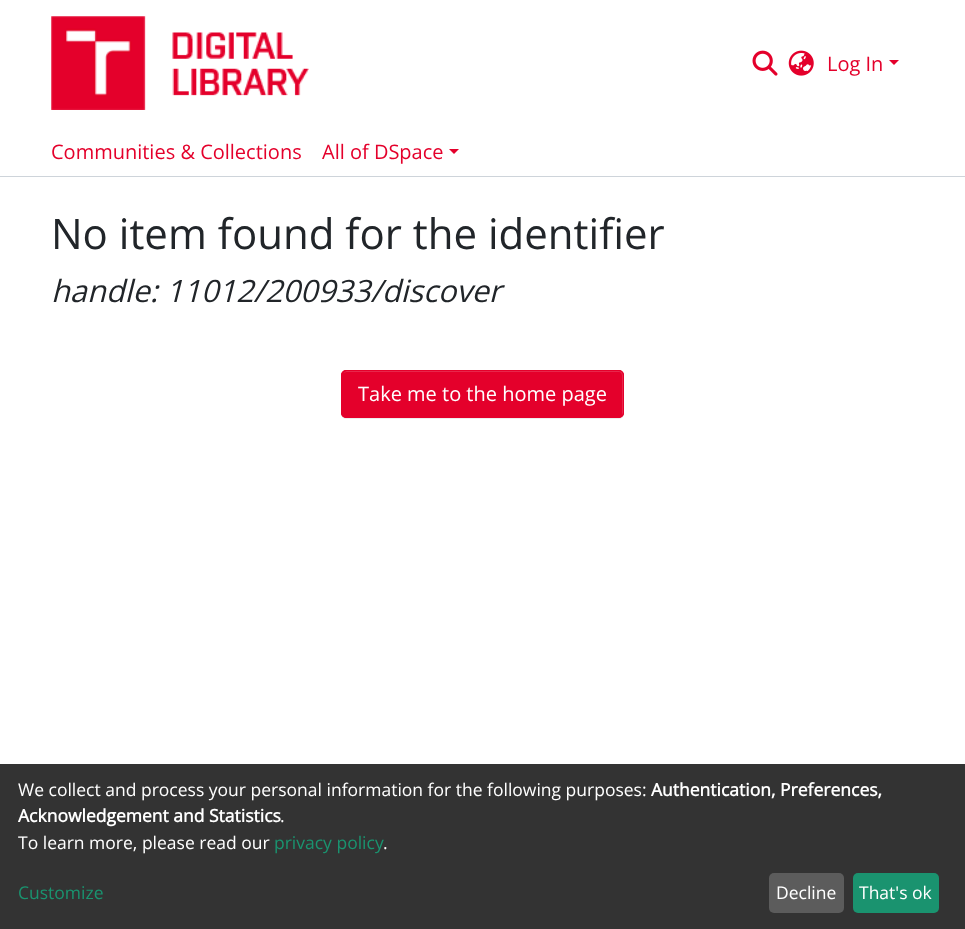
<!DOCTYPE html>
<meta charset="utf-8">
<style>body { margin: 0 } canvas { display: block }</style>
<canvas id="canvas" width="965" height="929"></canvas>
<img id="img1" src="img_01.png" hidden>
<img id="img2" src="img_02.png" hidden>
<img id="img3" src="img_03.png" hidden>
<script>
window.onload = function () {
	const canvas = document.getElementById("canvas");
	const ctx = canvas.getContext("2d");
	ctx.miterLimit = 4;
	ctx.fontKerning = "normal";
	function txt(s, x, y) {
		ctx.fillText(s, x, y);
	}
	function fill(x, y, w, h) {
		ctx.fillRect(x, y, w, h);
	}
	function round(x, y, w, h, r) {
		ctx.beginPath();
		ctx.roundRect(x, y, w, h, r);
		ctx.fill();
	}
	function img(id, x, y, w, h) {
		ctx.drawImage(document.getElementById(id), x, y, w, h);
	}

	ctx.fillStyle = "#FFFFFF";
	fill(0, 0, 965, 929);
	img("img1", 51, 16, 258, 94);
	img("img2", 752, 50, 26, 26);
	img("img3", 788, 50, 26, 26);
	ctx.fillStyle = "#E4002B";
	ctx.beginPath();
	ctx.moveTo(889, 60);
	ctx.lineTo(899, 60);
	ctx.lineTo(894, 65);
	ctx.closePath();
	ctx.fill();
	ctx.fillStyle = "#CED4DA";
	fill(0, 176, 965, 1);
	ctx.fillStyle = "#E4002B";
	ctx.beginPath();
	ctx.moveTo(449, 149);
	ctx.lineTo(459, 149);
	ctx.lineTo(454, 154);
	ctx.closePath();
	ctx.fill();
	ctx.fillStyle = "rgba(0, 0, 0, 0.07)";
	ctx.filter = "blur(0.5px)";
	ctx.beginPath();
	ctx.roundRect(341, 371, 283, 48, 5);
	ctx.fill();
	ctx.filter = "none";
	ctx.fillStyle = "#E4002B";
	round(341, 370, 283, 48, 5);
	ctx.fillStyle = "#E8264B";
	ctx.beginPath();
	ctx.moveTo(346, 372);
	ctx.lineTo(619, 372);
	ctx.bezierCurveTo(621, 372, 622, 374, 622, 376);
	ctx.lineTo(622, 415);
	ctx.bezierCurveTo(623, 414, 623, 413, 623, 412);
	ctx.lineTo(623, 375);
	ctx.bezierCurveTo(623, 373, 621, 371, 619, 371);
	ctx.lineTo(347, 371);
	ctx.bezierCurveTo(346, 371, 344, 372, 344, 373);
	ctx.closePath();
	ctx.fill();
	ctx.beginPath();
	ctx.roundRect(341.5, 370.5, 282, 47, 4.5);
	ctx.strokeStyle = "#E4002B";
	ctx.stroke();
	ctx.fillStyle = "#333333";
	fill(0, 764, 965, 165);
	ctx.fillStyle = "#5C5C5C";
	round(769, 873, 75, 40, 5);
	ctx.fillStyle = "#1A936F";
	round(853, 873, 86, 40, 5);
	ctx.font = "20px Open Sans";
	ctx.fillStyle = "#E4002B";
	txt("Log In", 827, 71);
	txt("Communities & Collections", 51, 159);
	txt("All of DSpace", 322, 159);
	ctx.font = "42px Open Sans";
	ctx.fillStyle = "#212529";
	txt("No item found for the identifier", 51, 249);
	ctx.font = "italic 30.75px Open Sans";
	txt("handle: 11012/200933/discover", 51, 302);
	ctx.font = "20px Open Sans";
	ctx.fillStyle = "#FFFFFF";
	txt("Take me to the home page", 358, 401);
	ctx.font = "17.5px Open Sans";
	txt("We collect and process your personal information for the following purposes:", 18, 796);
	ctx.font = "bold 17.5px Open Sans";
	txt("Authentication, Preferences,", 651, 796);
	txt("Acknowledgement and Statistics", 18, 822);
	ctx.font = "17.5px Open Sans";
	txt(".", 280, 822);
	txt("To learn more, please read our", 18, 849);
	ctx.fillStyle = "#1A936F";
	txt("privacy policy", 274, 849);
	ctx.fillStyle = "#FFFFFF";
	txt(".", 383, 849);
	ctx.fillStyle = "#1A936F";
	txt("Customize", 18, 899);
	ctx.fillStyle = "#FFFFFF";
	txt("Decline", 776, 899);
	txt("That's ok", 859, 899);
};
</script>
